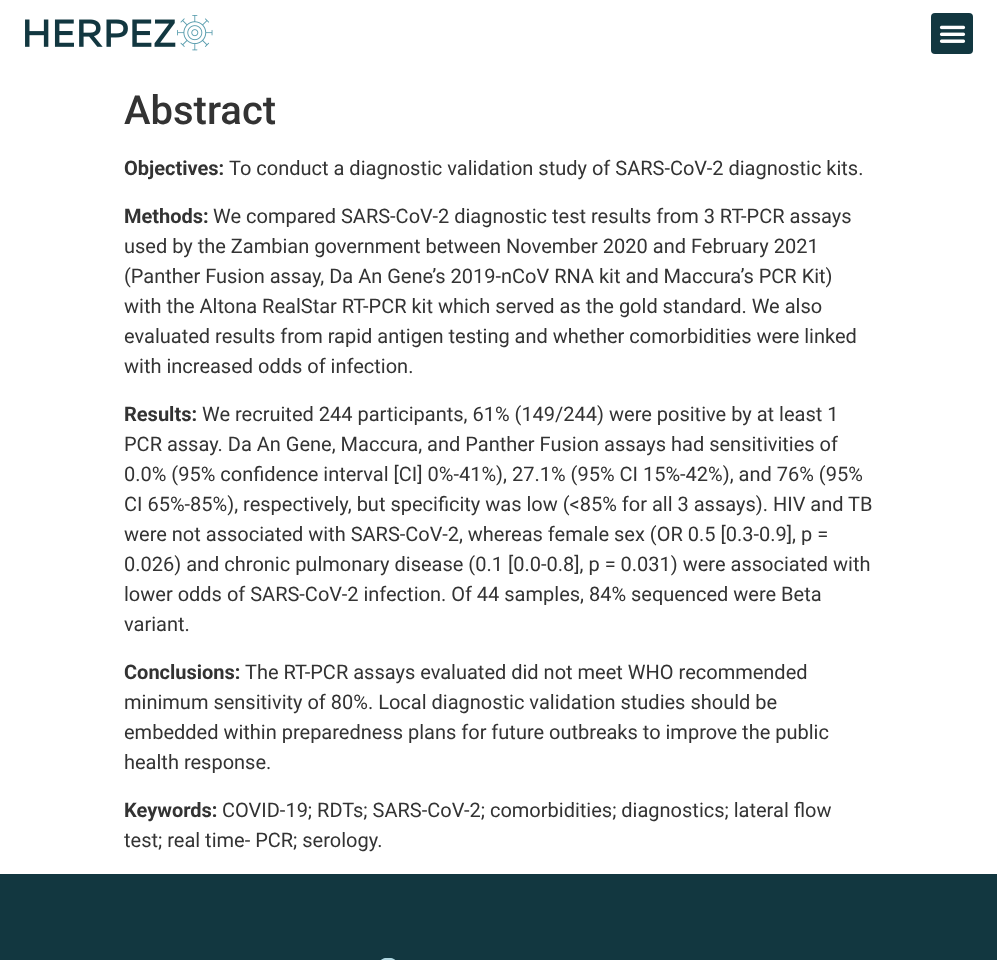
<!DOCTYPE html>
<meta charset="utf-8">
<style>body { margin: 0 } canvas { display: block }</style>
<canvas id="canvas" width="997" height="960"></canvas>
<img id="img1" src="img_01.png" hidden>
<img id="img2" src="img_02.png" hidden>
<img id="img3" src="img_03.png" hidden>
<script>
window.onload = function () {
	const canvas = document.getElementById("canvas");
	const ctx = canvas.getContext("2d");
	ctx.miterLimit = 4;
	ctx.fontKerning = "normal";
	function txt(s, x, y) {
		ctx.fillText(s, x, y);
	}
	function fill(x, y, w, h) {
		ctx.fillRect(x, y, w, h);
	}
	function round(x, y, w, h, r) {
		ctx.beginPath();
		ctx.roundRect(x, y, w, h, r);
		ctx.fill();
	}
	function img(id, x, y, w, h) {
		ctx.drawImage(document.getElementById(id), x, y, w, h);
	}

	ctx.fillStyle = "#FFFFFF";
	fill(0, 0, 997, 960);
	img("img1", 25, 15, 188, 36);
	ctx.fillStyle = "#123740";
	round(931, 13, 42, 41, 4);
	img("img2", 939, 25, 27, 18);
	fill(0, 874, 997, 86);
	img("img3", 381, 958, 15, 2);
	ctx.font = "500 40px Roboto";
	ctx.fillStyle = "#333333";
	txt("Abstract", 124, 124);
	ctx.font = "bold 20px Roboto";
	txt("Objectives:", 124, 175);
	ctx.font = "20px Roboto";
	txt("To conduct a diagnostic validation study of SARS-CoV-2 diagnostic kits.", 229, 175);
	ctx.font = "bold 20px Roboto";
	txt("Methods:", 124, 223);
	ctx.font = "20px Roboto";
	txt("We compared SARS-CoV-2 diagnostic test results from 3 RT-PCR assays", 213, 223);
	txt("used by the Zambian government between November 2020 and February 2021", 124, 253);
	txt("(Panther Fusion assay, Da An Gene’s 2019-nCoV RNA kit and Maccura’s PCR Kit)", 124, 283);
	txt("with the Altona RealStar RT-PCR kit which served as the gold standard. We also", 124, 313);
	txt("evaluated results from rapid antigen testing and whether comorbidities were linked", 124, 343);
	txt("with increased odds of infection.", 124, 373);
	ctx.font = "bold 20px Roboto";
	txt("Results:", 124, 421);
	ctx.font = "20px Roboto";
	txt("We recruited 244 participants, 61% (149/244) were positive by at least 1", 202, 421);
	txt("PCR assay. Da An Gene, Maccura, and Panther Fusion assays had sensitivities of", 124, 451);
	txt("0.0% (95% confidence interval [CI] 0%-41%), 27.1% (95% CI 15%-42%), and 76% (95%", 124, 481);
	txt("CI 65%-85%), respectively, but specificity was low (<85% for all 3 assays). HIV and TB", 124, 511);
	txt("were not associated with SARS-CoV-2, whereas female sex (OR 0.5 [0.3-0.9], p =", 124, 541);
	txt("0.026) and chronic pulmonary disease (0.1 [0.0-0.8], p = 0.031) were associated with", 124, 571);
	txt("lower odds of SARS-CoV-2 infection. Of 44 samples, 84% sequenced were Beta", 124, 601);
	txt("variant.", 124, 631);
	ctx.font = "bold 20px Roboto";
	txt("Conclusions:", 124, 679);
	ctx.font = "20px Roboto";
	txt("The RT-PCR assays evaluated did not meet WHO recommended", 245, 679);
	txt("minimum sensitivity of 80%. Local diagnostic validation studies should be", 124, 709);
	txt("embedded within preparedness plans for future outbreaks to improve the public", 124, 739);
	txt("health response.", 124, 769);
	ctx.font = "bold 20px Roboto";
	txt("Keywords:", 124, 817);
	ctx.font = "20px Roboto";
	txt("COVID-19; RDTs; SARS-CoV-2; comorbidities; diagnostics; lateral flow", 222, 817);
	txt("test; real time- PCR; serology.", 124, 847);
};
</script>
